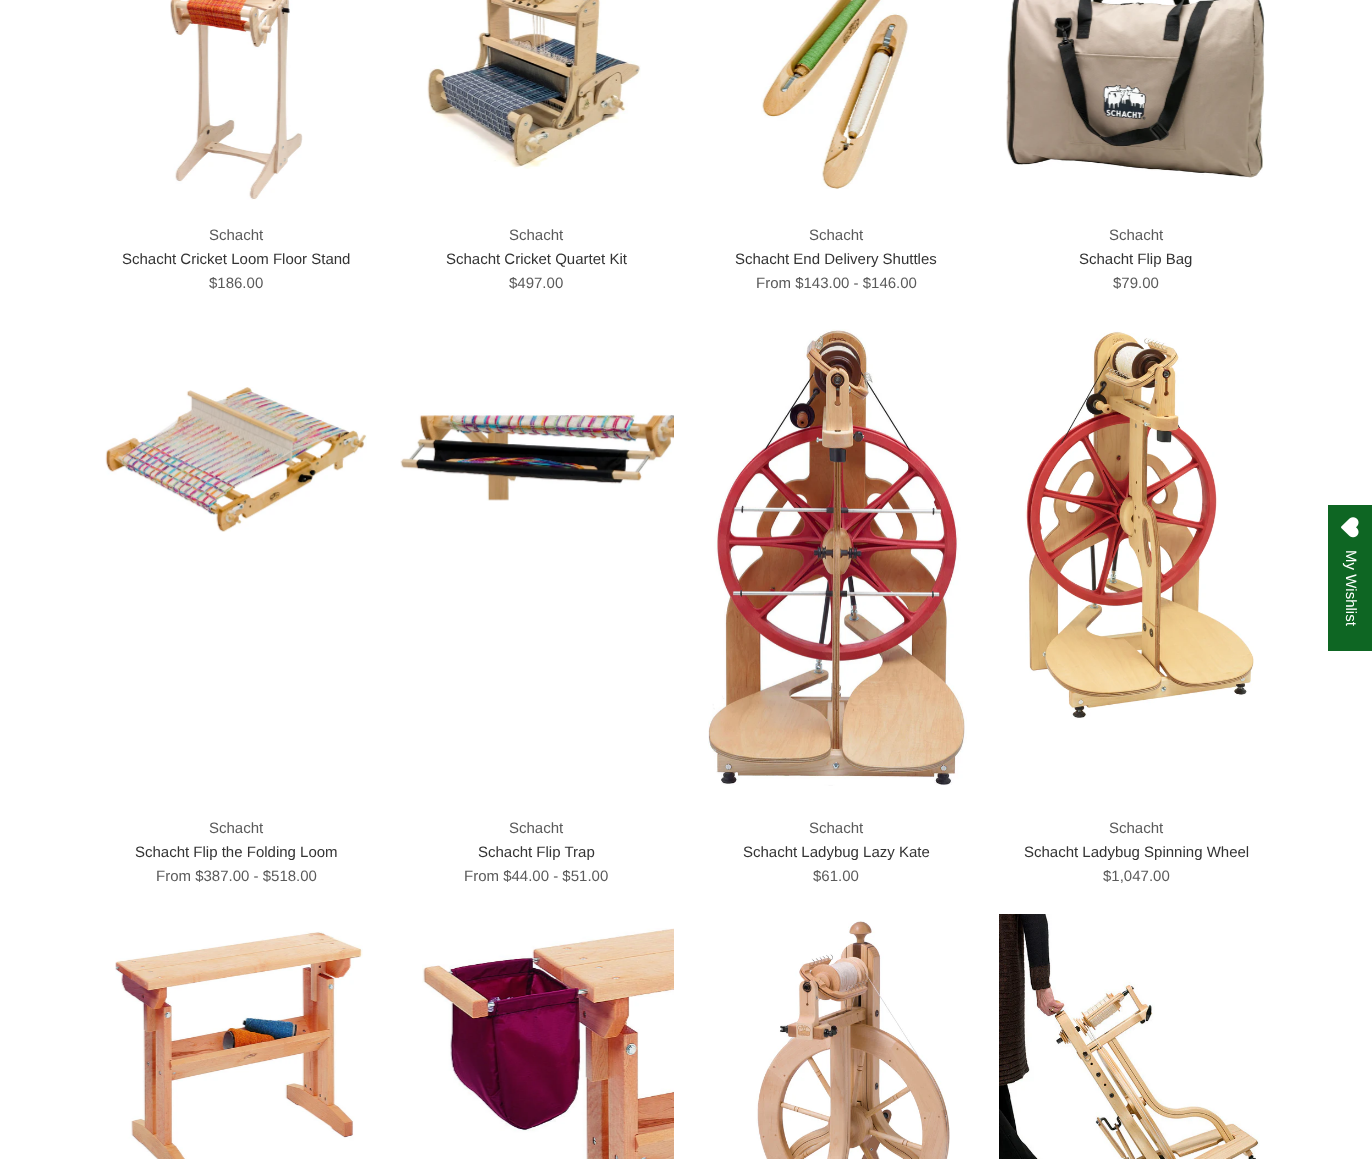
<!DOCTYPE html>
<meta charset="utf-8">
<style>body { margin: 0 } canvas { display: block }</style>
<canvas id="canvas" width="1372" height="1159"></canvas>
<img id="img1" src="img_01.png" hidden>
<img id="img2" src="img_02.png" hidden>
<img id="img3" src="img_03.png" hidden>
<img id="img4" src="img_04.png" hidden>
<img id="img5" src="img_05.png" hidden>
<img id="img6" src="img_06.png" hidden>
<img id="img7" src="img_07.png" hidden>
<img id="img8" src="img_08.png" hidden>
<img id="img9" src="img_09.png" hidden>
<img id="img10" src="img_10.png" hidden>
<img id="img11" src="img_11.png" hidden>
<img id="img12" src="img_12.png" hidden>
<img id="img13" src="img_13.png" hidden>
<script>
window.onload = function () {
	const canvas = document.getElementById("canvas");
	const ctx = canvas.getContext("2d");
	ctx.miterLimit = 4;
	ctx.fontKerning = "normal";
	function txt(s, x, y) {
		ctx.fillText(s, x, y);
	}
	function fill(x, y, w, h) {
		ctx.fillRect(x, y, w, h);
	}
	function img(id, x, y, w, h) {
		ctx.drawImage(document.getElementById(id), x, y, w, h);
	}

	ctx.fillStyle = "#FFFFFF";
	fill(0, 0, 1372, 1159);
	img("img1", 170, 0, 133, 200);
	img("img2", 427, 0, 214, 169);
	img("img3", 761, 0, 148, 189);
	img("img4", 1006, 0, 259, 178);
	img("img5", 105, 387, 262, 145);
	img("img6", 400, 413, 274, 88);
	img("img7", 708, 329, 259, 457);
	img("img8", 1025, 331, 229, 388);
	img("img9", 115, 931, 248, 228);
	img("img10", 422, 928, 252, 231);
	img("img11", 756, 920, 194, 239);
	img("img12", 999, 914, 261, 245);
	ctx.fillStyle = "#0E6623";
	fill(1328, 505, 44, 146);
	img("img13", 1341, 517, 18, 21);
	ctx.font = "15px Liberation Sans";
	ctx.fillStyle = "#5A5A5A";
	txt("Schacht", 209, 240);
	ctx.fillStyle = "#333333";
	txt("Schacht Cricket Loom Floor Stand", 122, 264);
	ctx.fillStyle = "#5A5A5A";
	txt("$186.00", 209, 288);
	txt("Schacht", 509, 240);
	ctx.fillStyle = "#333333";
	txt("Schacht Cricket Quartet Kit", 446, 264);
	ctx.fillStyle = "#5A5A5A";
	txt("$497.00", 509, 288);
	txt("Schacht", 809, 240);
	ctx.fillStyle = "#333333";
	txt("Schacht End Delivery Shuttles", 735, 264);
	ctx.fillStyle = "#5A5A5A";
	txt("From $143.00 - $146.00", 756, 288);
	txt("Schacht", 1109, 240);
	ctx.fillStyle = "#333333";
	txt("Schacht Flip Bag", 1079, 264);
	ctx.fillStyle = "#5A5A5A";
	txt("$79.00", 1113, 288);
	txt("Schacht", 209, 833);
	ctx.fillStyle = "#333333";
	txt("Schacht Flip the Folding Loom", 135, 857);
	ctx.fillStyle = "#5A5A5A";
	txt("From $387.00 - $518.00", 156, 881);
	txt("Schacht", 509, 833);
	ctx.fillStyle = "#333333";
	txt("Schacht Flip Trap", 478, 857);
	ctx.fillStyle = "#5A5A5A";
	txt("From $44.00 - $51.00", 464, 881);
	txt("Schacht", 809, 833);
	ctx.fillStyle = "#333333";
	txt("Schacht Ladybug Lazy Kate", 743, 857);
	ctx.fillStyle = "#5A5A5A";
	txt("$61.00", 813, 881);
	txt("Schacht", 1109, 833);
	ctx.fillStyle = "#333333";
	txt("Schacht Ladybug Spinning Wheel", 1024, 857);
	ctx.fillStyle = "#5A5A5A";
	txt("$1,047.00", 1103, 881);
	ctx.fillStyle = "#FFFFFF";
	ctx.save();
	ctx.translate(1346, 550);
	ctx.rotate(90 * Math.PI / 180);
	ctx.fillText("My Wishlist", 0, 0);
	ctx.restore();
};
</script>
